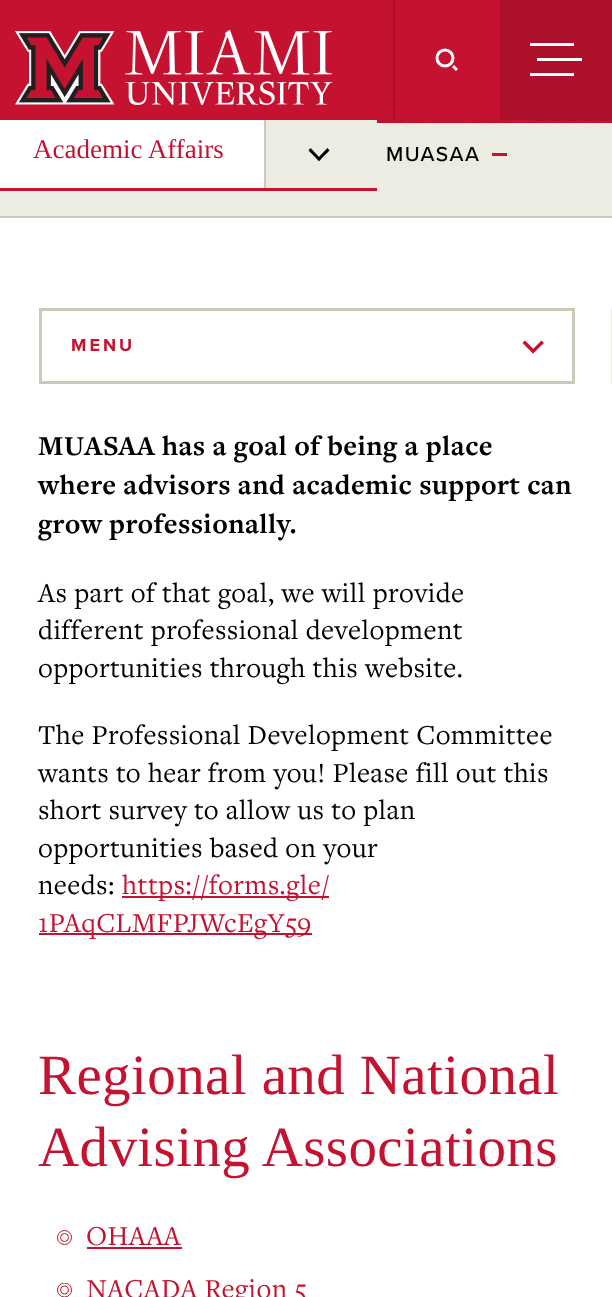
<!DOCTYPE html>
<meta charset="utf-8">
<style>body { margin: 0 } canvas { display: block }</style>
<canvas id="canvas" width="612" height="1297"></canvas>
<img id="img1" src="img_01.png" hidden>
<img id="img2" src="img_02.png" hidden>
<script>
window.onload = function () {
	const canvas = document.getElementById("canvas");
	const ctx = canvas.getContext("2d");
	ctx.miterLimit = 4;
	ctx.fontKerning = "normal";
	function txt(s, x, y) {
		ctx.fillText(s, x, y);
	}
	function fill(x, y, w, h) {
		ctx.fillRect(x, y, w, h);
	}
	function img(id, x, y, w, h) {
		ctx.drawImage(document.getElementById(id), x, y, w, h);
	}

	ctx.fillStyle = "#FFFFFF";
	fill(0, 0, 612, 1297);
	ctx.fillStyle = "#EDECE2";
	fill(0, 123, 612, 93);
	ctx.fillStyle = "#CCC9B8";
	fill(264, 117, 2, 71);
	ctx.fillStyle = "#C41230";
	fill(0, 0, 500, 120);
	img("img1", 15, 30, 318, 75);
	ctx.fillStyle = "#AD102A";
	fill(393, 0, 2, 120);
	ctx.beginPath();
	ctx.arc(445, 58, 8, 0, Math.PI * 2);
	ctx.strokeStyle = "#FFFFFF";
	ctx.lineWidth = 3;
	ctx.stroke();
	ctx.beginPath();
	ctx.moveTo(457, 70);
	ctx.lineTo(453, 66);
	ctx.stroke();
	fill(500, 0, 112, 120);
	ctx.fillStyle = "#FFFFFF";
	fill(530, 43, 44, 3);
	fill(530, 73, 44, 3);
	fill(537, 58, 45, 3);
	fill(0, 123, 264, 65);
	ctx.fillStyle = "#C41230";
	fill(0, 188, 377, 3);
	ctx.fillStyle = "#EDECE2";
	fill(266, 120, 111, 3);
	ctx.fillStyle = "#000000";
	ctx.beginPath();
	ctx.moveTo(327.5, 148);
	ctx.lineTo(329.5, 150.5);
	ctx.lineTo(319, 161);
	ctx.lineTo(317, 159);
	ctx.closePath();
	ctx.fill();
	ctx.beginPath();
	ctx.moveTo(310.5, 148);
	ctx.lineTo(321, 159);
	ctx.lineTo(319, 161);
	ctx.lineTo(308.5, 150.5);
	ctx.closePath();
	ctx.fill();
	ctx.fillStyle = "#C41230";
	fill(377, 122, 235, 1);
	img("img2", 377, 120, 235, 3);
	ctx.fillStyle = "#CCC9B8";
	fill(0, 216, 612, 2);
	ctx.fillStyle = "#C41230";
	fill(492, 153, 15, 3);
	ctx.strokeStyle = "#CCC9B8";
	ctx.strokeRect(40.5, 309.5, 533, 73);
	ctx.beginPath();
	ctx.moveTo(541.5, 340.5);
	ctx.lineTo(544, 343);
	ctx.lineTo(533, 353.5);
	ctx.lineTo(531, 351);
	ctx.closePath();
	ctx.fill();
	ctx.beginPath();
	ctx.moveTo(525, 340.5);
	ctx.lineTo(535.5, 351);
	ctx.lineTo(533, 353.5);
	ctx.lineTo(522.5, 343);
	ctx.closePath();
	ctx.fill();
	ctx.fillStyle = "#EDECE2";
	fill(611, 308, 1, 76);
	ctx.fillStyle = "#C41230";
	fill(122, 896, 207, 2);
	fill(39, 933, 273, 2);
	ctx.beginPath();
	ctx.arc(64.5, 1237.5, 4, 0, Math.PI * 2);
	ctx.strokeStyle = "#C41230";
	ctx.lineWidth = 1;
	ctx.stroke();
	ctx.beginPath();
	ctx.arc(64.5, 1237.5, 7, 0, Math.PI * 2);
	ctx.stroke();
	fill(87, 1247, 95, 2);
	ctx.beginPath();
	ctx.arc(64.5, 1290, 4, 0, Math.PI * 2);
	ctx.stroke();
	ctx.save();
	ctx.beginPath();
	ctx.rect(57, 1283, 15, 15);
	ctx.clip();
	ctx.beginPath();
	ctx.arc(64.5, 1290, 7, 0, Math.PI * 2);
	ctx.stroke();
	ctx.restore();
	ctx.font = "27px Liberation Serif";
	txt("Academic Affairs", 33, 158);
	ctx.letterSpacing = "1.5px";
	ctx.font = "500 21px Proxima Nova";
	ctx.fillStyle = "#000000";
	txt("MUASAA", 386, 161);
	ctx.letterSpacing = "3px";
	ctx.font = "bold 18px Proxima Nova";
	ctx.fillStyle = "#C41230";
	txt("MENU", 71, 351);
	ctx.letterSpacing = "0.4px";
	ctx.font = "bold 28.5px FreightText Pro";
	ctx.fillStyle = "#000000";
	txt("MUASAA has a goal of being a place", 38, 455);
	txt("where advisors and academic support can", 38, 494);
	txt("grow professionally.", 38, 533);
	ctx.font = "28.5px FreightText Pro";
	txt("As part of that goal, we will provide", 38, 602);
	txt("different professional development", 38, 639);
	txt("opportunities through this website.", 38, 677);
	txt("The Professional Development Committee", 38, 744);
	txt("wants to hear from you! Please fill out this", 38, 782);
	txt("short survey to allow us to plan", 38, 819);
	txt("opportunities based on your", 38, 857);
	txt("needs:", 38, 894);
	ctx.fillStyle = "#C41230";
	txt("https://forms.gle/", 122, 894);
	txt("1PAqCLMFPJWcEgY59", 38, 932);
	ctx.font = "57px Liberation Serif";
	txt("Regional and National", 38, 1094);
	txt("Advising Associations", 38, 1166);
	ctx.font = "28.5px FreightText Pro";
	txt("OHAAA", 86, 1245);
	txt("NACADA Region 5", 86, 1298);
};
</script>
